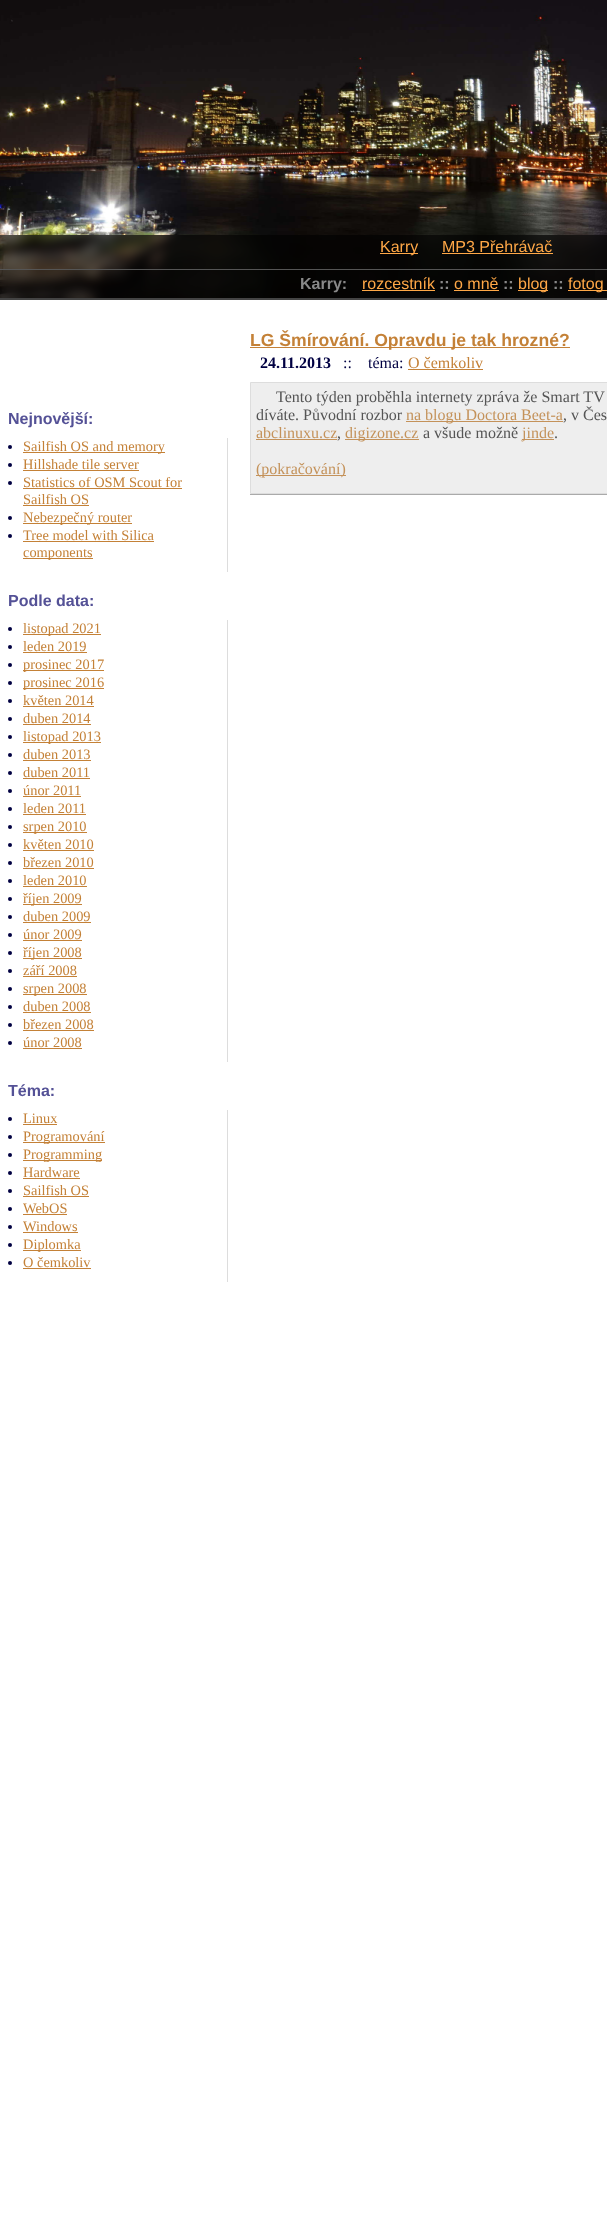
<!DOCTYPE html>
<meta charset="utf-8">
<style>body { margin: 0 } canvas { display: block }</style>
<canvas id="canvas" width="607" height="2235"></canvas>
<img id="img1" src="img_01.png" hidden>
<img id="img2" src="img_02.png" hidden>
<script>
window.onload = function () {
	const canvas = document.getElementById("canvas");
	const ctx = canvas.getContext("2d");
	ctx.miterLimit = 4;
	ctx.fontKerning = "normal";
	function txt(s, x, y) {
		ctx.fillText(s, x, y);
	}
	function fill(x, y, w, h) {
		ctx.fillRect(x, y, w, h);
	}
	function img(id, x, y, w, h) {
		ctx.drawImage(document.getElementById(id), x, y, w, h);
	}

	ctx.fillStyle = "#FFFFFF";
	fill(0, 0, 607, 2235);
	img("img1", 0, 0, 607, 298);
	img("img2", 0, 235, 607, 63);
	ctx.fillStyle = "rgba(0, 0, 0, 0.6)";
	fill(0, 235, 607, 63);
	ctx.fillStyle = "#FFA847";
	fill(380, 253, 38, 1);
	fill(442, 253, 111, 1);
	ctx.fillStyle = "rgba(0, 0, 0, 0.2)";
	fill(0, 270, 595, 28);
	ctx.fillStyle = "#555555";
	fill(0, 269, 607, 1);
	ctx.fillStyle = "#444444";
	fill(0, 298, 607, 2);
	ctx.fillStyle = "#FFA847";
	fill(362, 290, 73, 1);
	fill(454, 290, 45, 1);
	fill(518, 290, 30, 1);
	fill(568, 290, 39, 1);
	ctx.fillStyle = "#DDDDDD";
	fill(227, 438, 1, 134);
	ctx.fillStyle = "#000042";
	ctx.beginPath();
	ctx.arc(10, 447, 2, 0, Math.PI * 2);
	ctx.fill();
	ctx.fillStyle = "#C48137";
	fill(23, 452, 142, 1);
	ctx.fillStyle = "#000042";
	ctx.beginPath();
	ctx.arc(10, 465, 2, 0, Math.PI * 2);
	ctx.fill();
	ctx.fillStyle = "#C48137";
	fill(23, 470, 116, 1);
	ctx.fillStyle = "#000042";
	ctx.beginPath();
	ctx.arc(10, 483, 2, 0, Math.PI * 2);
	ctx.fill();
	ctx.fillStyle = "#C48137";
	fill(23, 488, 159, 1);
	fill(23, 505, 66, 1);
	ctx.fillStyle = "#000042";
	ctx.beginPath();
	ctx.arc(10, 518, 2, 0, Math.PI * 2);
	ctx.fill();
	ctx.fillStyle = "#C48137";
	fill(23, 523, 109, 1);
	ctx.fillStyle = "#000042";
	ctx.beginPath();
	ctx.arc(10, 536, 2, 0, Math.PI * 2);
	ctx.fill();
	ctx.fillStyle = "#C48137";
	fill(23, 541, 131, 1);
	fill(23, 558, 70, 1);
	ctx.fillStyle = "#DDDDDD";
	fill(227, 620, 1, 442);
	ctx.fillStyle = "#000042";
	ctx.beginPath();
	ctx.arc(10, 629, 2, 0, Math.PI * 2);
	ctx.fill();
	ctx.fillStyle = "#C48137";
	fill(23, 634, 78, 1);
	ctx.fillStyle = "#000042";
	ctx.beginPath();
	ctx.arc(10, 647, 2, 0, Math.PI * 2);
	ctx.fill();
	ctx.fillStyle = "#C48137";
	fill(23, 652, 64, 1);
	ctx.fillStyle = "#000042";
	ctx.beginPath();
	ctx.arc(10, 665, 2, 0, Math.PI * 2);
	ctx.fill();
	ctx.fillStyle = "#C48137";
	fill(23, 670, 81, 1);
	ctx.fillStyle = "#000042";
	ctx.beginPath();
	ctx.arc(10, 683, 2, 0, Math.PI * 2);
	ctx.fill();
	ctx.fillStyle = "#C48137";
	fill(23, 688, 81, 1);
	ctx.fillStyle = "#000042";
	ctx.beginPath();
	ctx.arc(10, 701, 2, 0, Math.PI * 2);
	ctx.fill();
	ctx.fillStyle = "#C48137";
	fill(23, 706, 71, 1);
	ctx.fillStyle = "#000042";
	ctx.beginPath();
	ctx.arc(10, 719, 2, 0, Math.PI * 2);
	ctx.fill();
	ctx.fillStyle = "#C48137";
	fill(23, 724, 68, 1);
	ctx.fillStyle = "#000042";
	ctx.beginPath();
	ctx.arc(10, 737, 2, 0, Math.PI * 2);
	ctx.fill();
	ctx.fillStyle = "#C48137";
	fill(23, 742, 78, 1);
	ctx.fillStyle = "#000042";
	ctx.beginPath();
	ctx.arc(10, 755, 2, 0, Math.PI * 2);
	ctx.fill();
	ctx.fillStyle = "#C48137";
	fill(23, 760, 68, 1);
	ctx.fillStyle = "#000042";
	ctx.beginPath();
	ctx.arc(10, 773, 2, 0, Math.PI * 2);
	ctx.fill();
	ctx.fillStyle = "#C48137";
	fill(23, 778, 67, 1);
	ctx.fillStyle = "#000042";
	ctx.beginPath();
	ctx.arc(10, 791, 2, 0, Math.PI * 2);
	ctx.fill();
	ctx.fillStyle = "#C48137";
	fill(23, 796, 58, 1);
	ctx.fillStyle = "#000042";
	ctx.beginPath();
	ctx.arc(10, 809, 2, 0, Math.PI * 2);
	ctx.fill();
	ctx.fillStyle = "#C48137";
	fill(23, 814, 63, 1);
	ctx.fillStyle = "#000042";
	ctx.beginPath();
	ctx.arc(10, 827, 2, 0, Math.PI * 2);
	ctx.fill();
	ctx.fillStyle = "#C48137";
	fill(23, 832, 64, 1);
	ctx.fillStyle = "#000042";
	ctx.beginPath();
	ctx.arc(10, 845, 2, 0, Math.PI * 2);
	ctx.fill();
	ctx.fillStyle = "#C48137";
	fill(23, 850, 71, 1);
	ctx.fillStyle = "#000042";
	ctx.beginPath();
	ctx.arc(10, 863, 2, 0, Math.PI * 2);
	ctx.fill();
	ctx.fillStyle = "#C48137";
	fill(23, 868, 71, 1);
	ctx.fillStyle = "#000042";
	ctx.beginPath();
	ctx.arc(10, 881, 2, 0, Math.PI * 2);
	ctx.fill();
	ctx.fillStyle = "#C48137";
	fill(23, 886, 64, 1);
	ctx.fillStyle = "#000042";
	ctx.beginPath();
	ctx.arc(10, 899, 2, 0, Math.PI * 2);
	ctx.fill();
	ctx.fillStyle = "#C48137";
	fill(23, 904, 59, 1);
	ctx.fillStyle = "#000042";
	ctx.beginPath();
	ctx.arc(10, 917, 2, 0, Math.PI * 2);
	ctx.fill();
	ctx.fillStyle = "#C48137";
	fill(23, 922, 68, 1);
	ctx.fillStyle = "#000042";
	ctx.beginPath();
	ctx.arc(10, 935, 2, 0, Math.PI * 2);
	ctx.fill();
	ctx.fillStyle = "#C48137";
	fill(23, 940, 59, 1);
	ctx.fillStyle = "#000042";
	ctx.beginPath();
	ctx.arc(10, 953, 2, 0, Math.PI * 2);
	ctx.fill();
	ctx.fillStyle = "#C48137";
	fill(23, 958, 59, 1);
	ctx.fillStyle = "#000042";
	ctx.beginPath();
	ctx.arc(10, 971, 2, 0, Math.PI * 2);
	ctx.fill();
	ctx.fillStyle = "#C48137";
	fill(23, 976, 54, 1);
	ctx.fillStyle = "#000042";
	ctx.beginPath();
	ctx.arc(10, 989, 2, 0, Math.PI * 2);
	ctx.fill();
	ctx.fillStyle = "#C48137";
	fill(23, 994, 64, 1);
	ctx.fillStyle = "#000042";
	ctx.beginPath();
	ctx.arc(10, 1007, 2, 0, Math.PI * 2);
	ctx.fill();
	ctx.fillStyle = "#C48137";
	fill(23, 1012, 68, 1);
	ctx.fillStyle = "#000042";
	ctx.beginPath();
	ctx.arc(10, 1025, 2, 0, Math.PI * 2);
	ctx.fill();
	ctx.fillStyle = "#C48137";
	fill(23, 1030, 71, 1);
	ctx.fillStyle = "#000042";
	ctx.beginPath();
	ctx.arc(10, 1043, 2, 0, Math.PI * 2);
	ctx.fill();
	ctx.fillStyle = "#C48137";
	fill(23, 1048, 59, 1);
	ctx.fillStyle = "#DDDDDD";
	fill(227, 1110, 1, 172);
	ctx.fillStyle = "#000042";
	ctx.beginPath();
	ctx.arc(10, 1119, 2, 0, Math.PI * 2);
	ctx.fill();
	ctx.fillStyle = "#C48137";
	fill(23, 1124, 34, 1);
	ctx.fillStyle = "#000042";
	ctx.beginPath();
	ctx.arc(10, 1137, 2, 0, Math.PI * 2);
	ctx.fill();
	ctx.fillStyle = "#C48137";
	fill(23, 1142, 82, 1);
	ctx.fillStyle = "#000042";
	ctx.beginPath();
	ctx.arc(10, 1155, 2, 0, Math.PI * 2);
	ctx.fill();
	ctx.fillStyle = "#C48137";
	fill(23, 1160, 79, 1);
	ctx.fillStyle = "#000042";
	ctx.beginPath();
	ctx.arc(10, 1173, 2, 0, Math.PI * 2);
	ctx.fill();
	ctx.fillStyle = "#C48137";
	fill(23, 1178, 57, 1);
	ctx.fillStyle = "#000042";
	ctx.beginPath();
	ctx.arc(10, 1191, 2, 0, Math.PI * 2);
	ctx.fill();
	ctx.fillStyle = "#C48137";
	fill(23, 1196, 66, 1);
	ctx.fillStyle = "#000042";
	ctx.beginPath();
	ctx.arc(10, 1209, 2, 0, Math.PI * 2);
	ctx.fill();
	ctx.fillStyle = "#C48137";
	fill(23, 1214, 44, 1);
	ctx.fillStyle = "#000042";
	ctx.beginPath();
	ctx.arc(10, 1227, 2, 0, Math.PI * 2);
	ctx.fill();
	ctx.fillStyle = "#C48137";
	fill(23, 1232, 55, 1);
	ctx.fillStyle = "#000042";
	ctx.beginPath();
	ctx.arc(10, 1245, 2, 0, Math.PI * 2);
	ctx.fill();
	ctx.fillStyle = "#C48137";
	fill(23, 1250, 58, 1);
	ctx.fillStyle = "#000042";
	ctx.beginPath();
	ctx.arc(10, 1263, 2, 0, Math.PI * 2);
	ctx.fill();
	ctx.fillStyle = "#C48137";
	fill(23, 1268, 68, 1);
	ctx.fillStyle = "#AAAAAA";
	fill(250, 494, 357, 1);
	ctx.fillStyle = "#C48137";
	fill(250, 347, 320, 1);
	fill(408, 369, 75, 1);
	ctx.fillStyle = "#EEEEEE";
	ctx.beginPath();
	ctx.rect(250.5, 382.5, 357, 111);
	ctx.fill();
	ctx.strokeStyle = "#DDDDDD";
	ctx.stroke();
	ctx.fillStyle = "#C4925A";
	fill(406, 421, 157, 1);
	fill(256, 439, 81, 1);
	fill(345, 439, 74, 1);
	fill(522, 439, 32, 1);
	fill(256, 475, 90, 1);
	ctx.font = "16px Liberation Sans";
	ctx.fillStyle = "#FFA847";
	txt("Karry", 380, 252);
	txt("MP3 Přehrávač", 442, 252);
	ctx.font = "bold 16px Liberation Sans";
	ctx.fillStyle = "#888888";
	txt("Karry:", 300, 289);
	ctx.font = "16px Liberation Sans";
	ctx.fillStyle = "#FFA847";
	txt("rozcestník", 362, 289);
	ctx.font = "bold 16px Liberation Sans";
	ctx.fillStyle = "#888888";
	txt("::", 439, 289);
	ctx.font = "16px Liberation Sans";
	ctx.fillStyle = "#FFA847";
	txt("o mně", 454, 289);
	ctx.font = "bold 16px Liberation Sans";
	ctx.fillStyle = "#888888";
	txt("::", 503, 289);
	ctx.font = "16px Liberation Sans";
	ctx.fillStyle = "#FFA847";
	txt("blog", 518, 289);
	ctx.font = "bold 16px Liberation Sans";
	ctx.fillStyle = "#888888";
	txt("::", 553, 289);
	ctx.font = "16px Liberation Sans";
	ctx.fillStyle = "#FFA847";
	txt("fotog", 568, 289);
	ctx.font = "bold 16px Liberation Sans";
	ctx.fillStyle = "#545196";
	txt("Nejnovější:", 8, 424);
	ctx.font = "14.4px Liberation Serif";
	ctx.fillStyle = "#C48137";
	txt("Sailfish OS and memory", 23, 451);
	txt("Hillshade tile server", 23, 469);
	txt("Statistics of OSM Scout for", 23, 487);
	txt("Sailfish OS", 23, 504);
	txt("Nebezpečný router", 23, 522);
	txt("Tree model with Silica", 23, 540);
	txt("components", 23, 557);
	ctx.font = "bold 16px Liberation Sans";
	ctx.fillStyle = "#545196";
	txt("Podle data:", 8, 606);
	ctx.font = "14.4px Liberation Serif";
	ctx.fillStyle = "#C48137";
	txt("listopad 2021", 23, 633);
	txt("leden 2019", 23, 651);
	txt("prosinec 2017", 23, 669);
	txt("prosinec 2016", 23, 687);
	txt("květen 2014", 23, 705);
	txt("duben 2014", 23, 723);
	txt("listopad 2013", 23, 741);
	txt("duben 2013", 23, 759);
	txt("duben 2011", 23, 777);
	txt("únor 2011", 23, 795);
	txt("leden 2011", 23, 813);
	txt("srpen 2010", 23, 831);
	txt("květen 2010", 23, 849);
	txt("březen 2010", 23, 867);
	txt("leden 2010", 23, 885);
	txt("říjen 2009", 23, 903);
	txt("duben 2009", 23, 921);
	txt("únor 2009", 23, 939);
	txt("říjen 2008", 23, 957);
	txt("září 2008", 23, 975);
	txt("srpen 2008", 23, 993);
	txt("duben 2008", 23, 1011);
	txt("březen 2008", 23, 1029);
	txt("únor 2008", 23, 1047);
	ctx.font = "bold 16px Liberation Sans";
	ctx.fillStyle = "#545196";
	txt("Téma:", 8, 1096);
	ctx.font = "14.4px Liberation Serif";
	ctx.fillStyle = "#C48137";
	txt("Linux", 23, 1123);
	txt("Programování", 23, 1141);
	txt("Programming", 23, 1159);
	txt("Hardware", 23, 1177);
	txt("Sailfish OS", 23, 1195);
	txt("WebOS", 23, 1213);
	txt("Windows", 23, 1231);
	txt("Diplomka", 23, 1249);
	txt("O čemkoliv", 23, 1267);
	ctx.font = "bold 17.6px Liberation Sans";
	txt("LG Šmírování. Opravdu je tak hrozné?", 250, 346);
	ctx.font = "bold 16px Liberation Serif";
	ctx.fillStyle = "#000042";
	txt("24.11.2013", 260, 368);
	ctx.font = "16px Liberation Serif";
	txt("::", 343, 368);
	txt("téma:", 368, 368);
	ctx.fillStyle = "#C48137";
	txt("O čemkoliv", 408, 368);
	ctx.fillStyle = "#555555";
	txt("Tento týden proběhla internety zpráva že Smart TV", 276, 402);
	txt("díváte. Původní rozbor", 256, 420);
	ctx.fillStyle = "#C4925A";
	txt("na blogu Doctora Beet-a", 406, 420);
	ctx.fillStyle = "#555555";
	txt(", v Čes", 563, 420);
	ctx.fillStyle = "#C4925A";
	txt("abclinuxu.cz", 256, 438);
	ctx.fillStyle = "#555555";
	txt(",", 337, 438);
	ctx.fillStyle = "#C4925A";
	txt("digizone.cz", 345, 438);
	ctx.fillStyle = "#555555";
	txt("a všude možně", 423, 438);
	ctx.fillStyle = "#C4925A";
	txt("jinde", 522, 438);
	ctx.fillStyle = "#555555";
	txt(".", 554, 438);
	ctx.fillStyle = "#C4925A";
	txt("(pokračování)", 256, 474);
};
</script>
